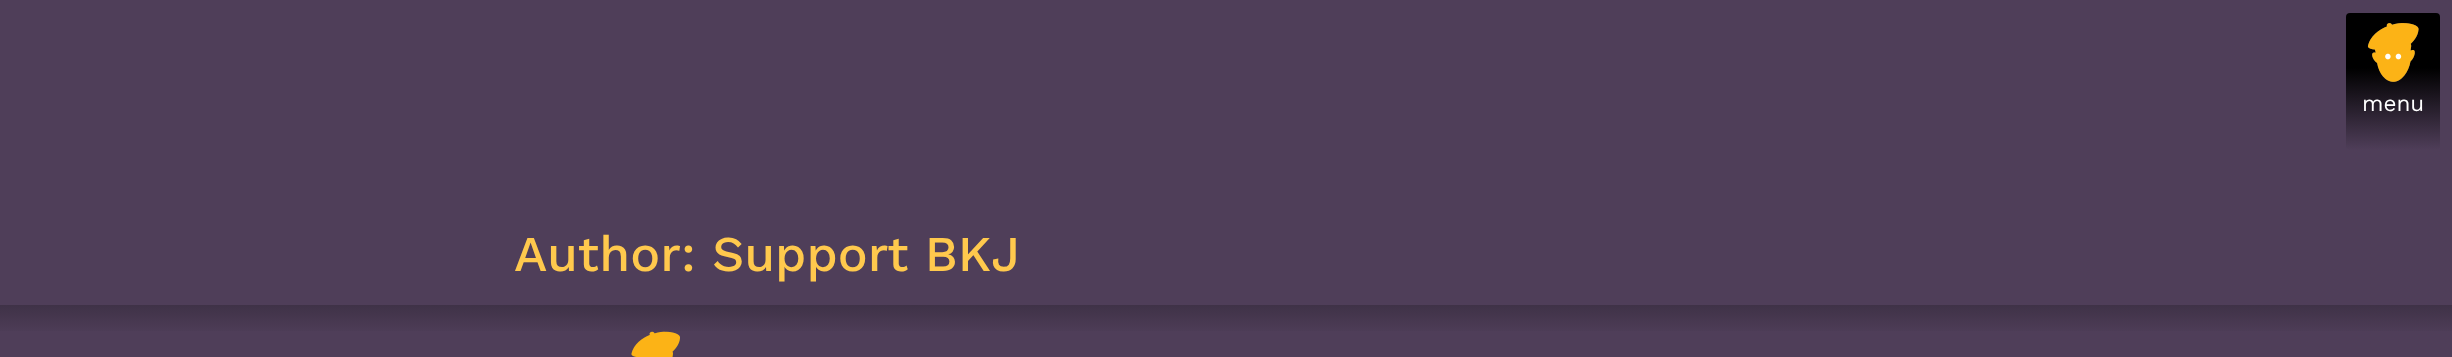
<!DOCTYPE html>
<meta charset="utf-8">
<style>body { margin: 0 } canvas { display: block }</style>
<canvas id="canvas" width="2452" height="357"></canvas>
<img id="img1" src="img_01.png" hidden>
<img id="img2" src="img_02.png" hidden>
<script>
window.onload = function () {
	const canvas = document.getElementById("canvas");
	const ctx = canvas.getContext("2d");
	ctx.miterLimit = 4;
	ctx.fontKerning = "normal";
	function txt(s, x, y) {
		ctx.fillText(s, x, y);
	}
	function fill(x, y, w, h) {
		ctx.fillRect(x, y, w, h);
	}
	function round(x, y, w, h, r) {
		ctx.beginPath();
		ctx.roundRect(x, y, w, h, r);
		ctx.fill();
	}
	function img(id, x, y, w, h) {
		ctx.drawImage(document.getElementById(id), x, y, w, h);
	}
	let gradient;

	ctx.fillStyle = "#4F3E59";
	fill(0, 0, 2452, 357);
	gradient = ctx.createLinearGradient(2393, 150, 2393, 13);
	gradient.addColorStop(0, "#4F3E59");
	gradient.addColorStop(0.6, "#000000");
	ctx.fillStyle = gradient;
	round(2346, 13, 94, 137, 4);
	img("img1", 2367, 23, 52, 59);
	gradient = ctx.createLinearGradient(1226, 305, 1226, 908);
	gradient.addColorStop(0, "#3F3247");
	gradient.addColorStop(0.05, "#4F3E59");
	ctx.fillStyle = gradient;
	fill(0, 305, 2452, 26);
	img("img2", 631, 331, 49, 26);
	ctx.font = "22.5px Work Sans";
	ctx.fillStyle = "#FFFFFF";
	txt("menu", 2362, 111);
	ctx.font = "500 50px Work Sans";
	ctx.fillStyle = "#FFC94D";
	txt("Author: Support BKJ", 514, 271);
};
</script>
